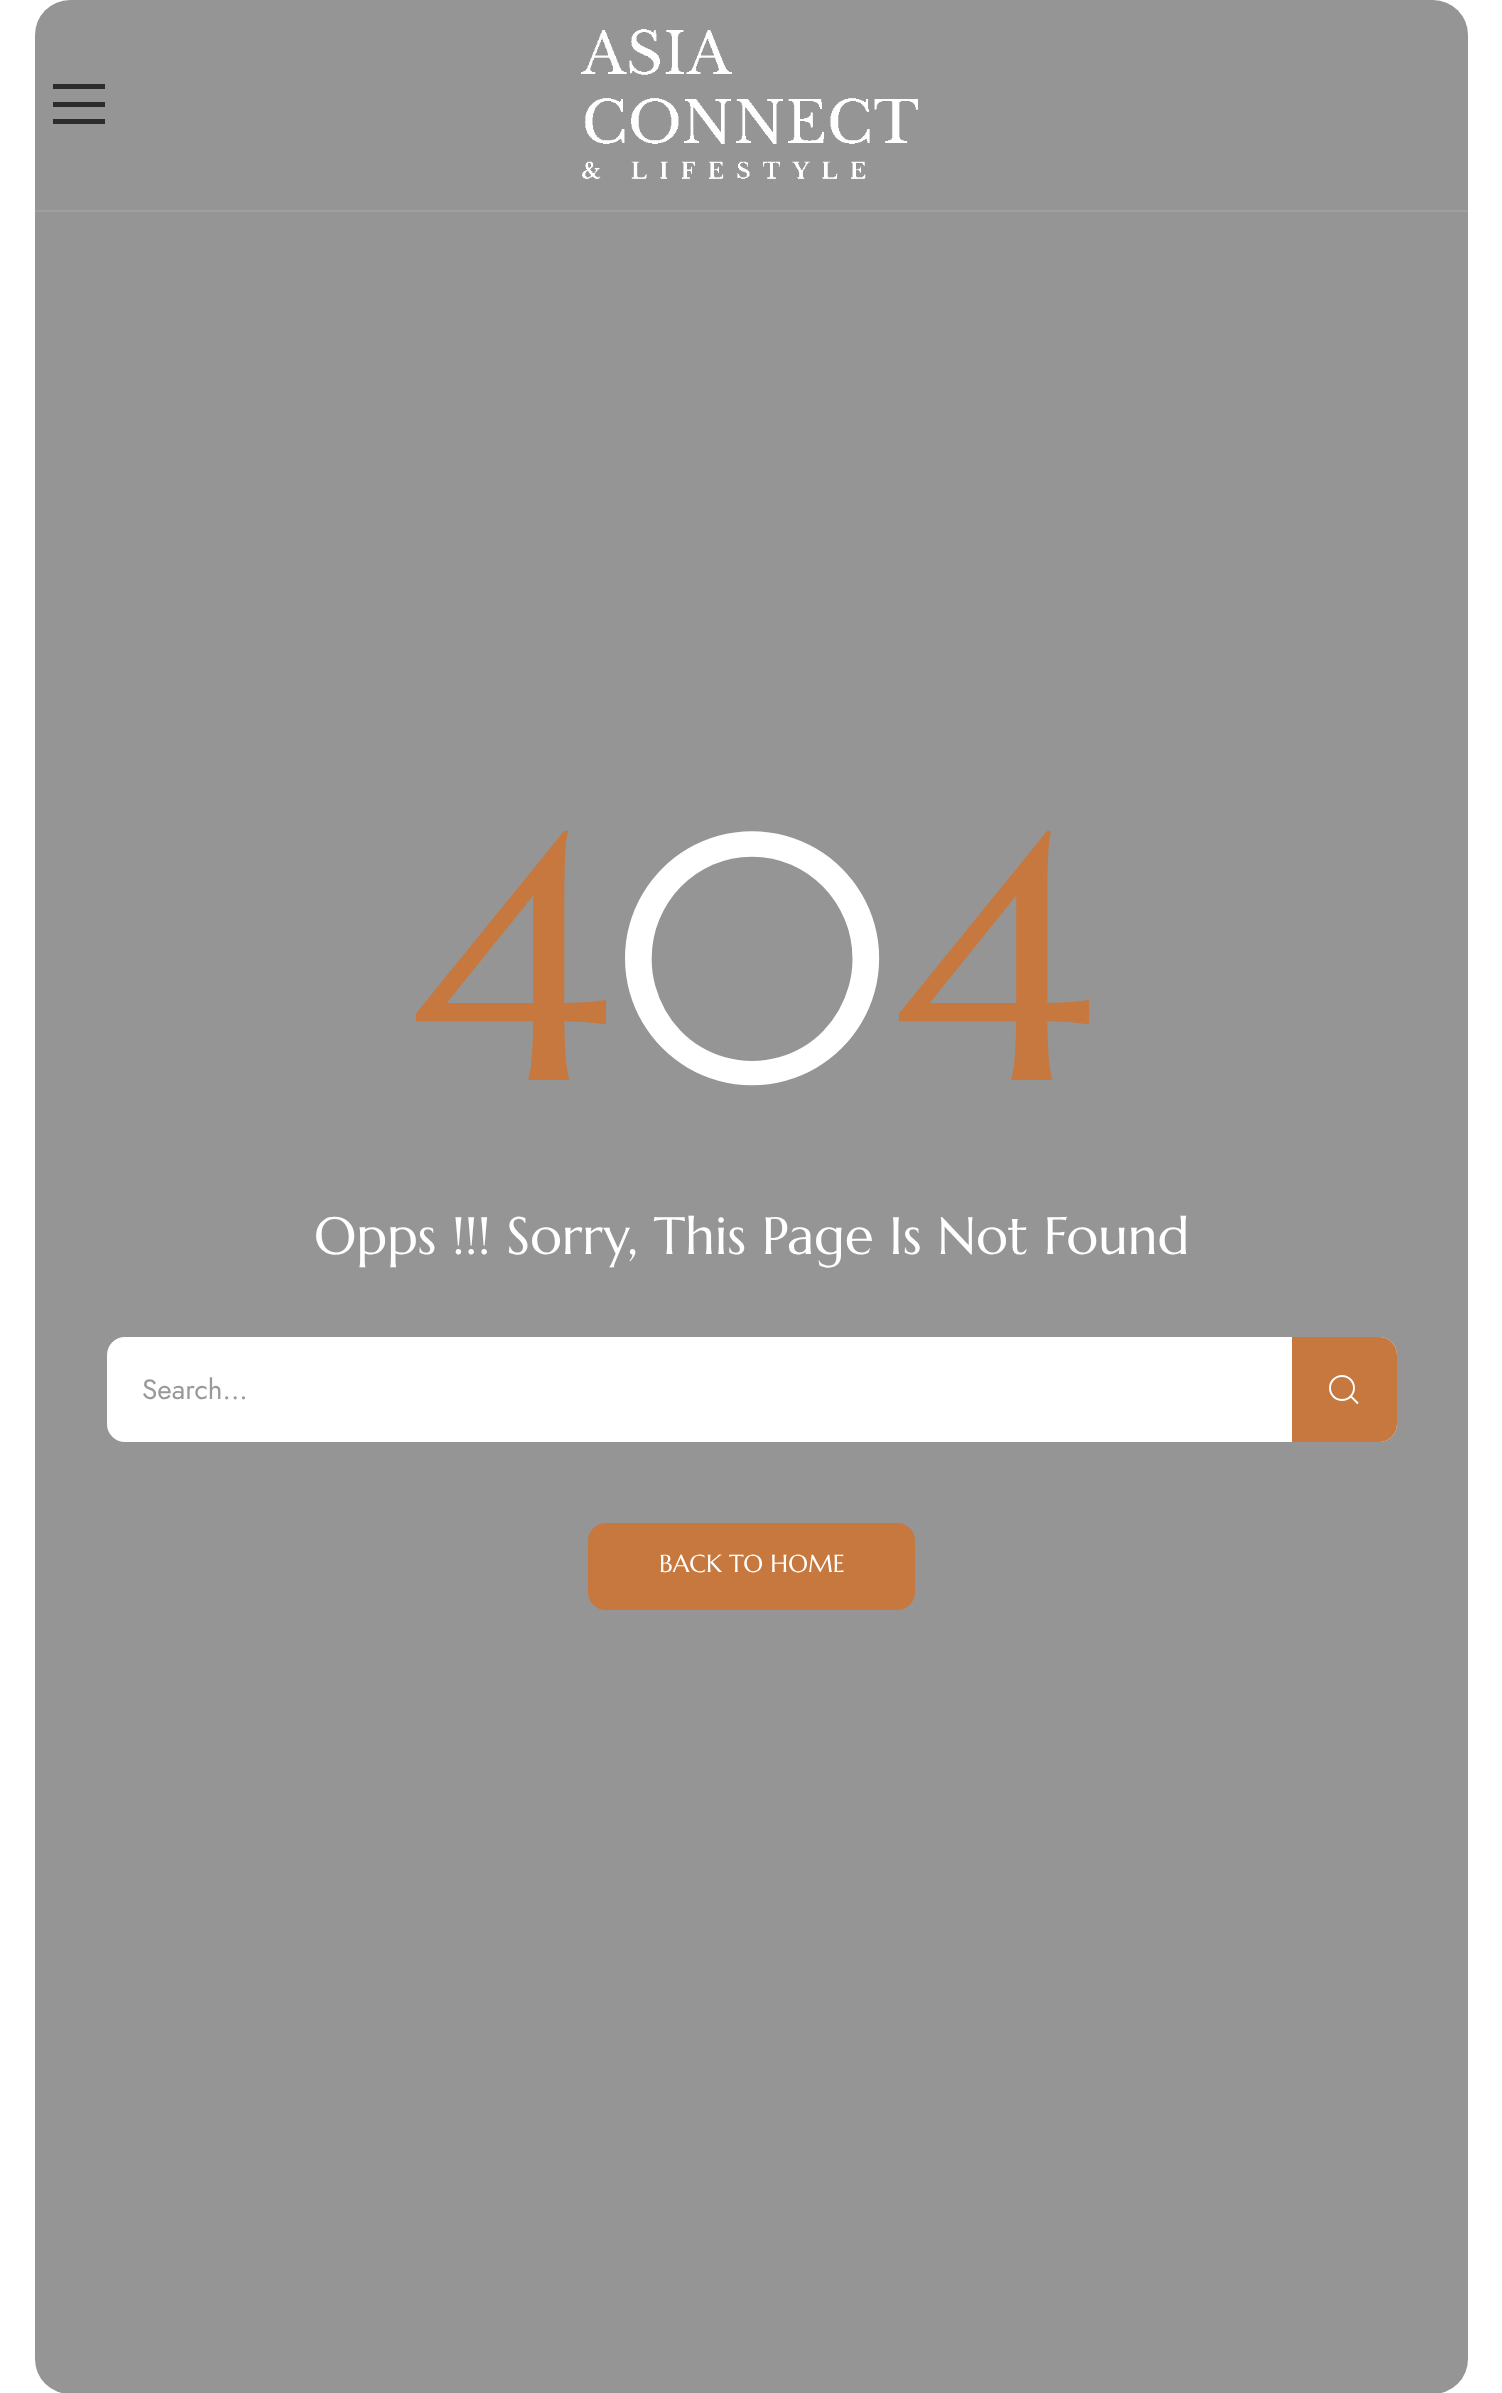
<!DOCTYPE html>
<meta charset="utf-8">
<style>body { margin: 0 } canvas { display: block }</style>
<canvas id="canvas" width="1502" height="2393"></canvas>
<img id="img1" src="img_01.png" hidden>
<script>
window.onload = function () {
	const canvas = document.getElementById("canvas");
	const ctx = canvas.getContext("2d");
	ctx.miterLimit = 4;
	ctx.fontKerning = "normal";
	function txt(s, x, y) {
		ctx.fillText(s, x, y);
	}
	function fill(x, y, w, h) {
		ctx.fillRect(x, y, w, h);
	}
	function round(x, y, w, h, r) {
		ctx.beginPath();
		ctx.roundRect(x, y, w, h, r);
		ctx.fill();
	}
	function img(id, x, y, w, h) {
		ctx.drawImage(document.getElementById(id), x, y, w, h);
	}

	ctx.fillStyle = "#FFFFFF";
	fill(0, 0, 1502, 2393);
	ctx.fillStyle = "#959595";
	round(35, 0, 1433, 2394, 35);
	ctx.fillStyle = "#2C2C2C";
	fill(53, 102, 52, 5);
	fill(53, 84, 52, 5);
	fill(53, 119, 52, 5);
	img("img1", 581, 29, 337, 150);
	ctx.fillStyle = "#A0A0A0";
	fill(35, 210, 1433, 2);
	ctx.fillStyle = "#FFFFFF";
	round(107, 1337, 1290, 105, 18);
	ctx.fillStyle = "#C6783E";
	ctx.beginPath();
	ctx.roundRect(1292, 1337, 105, 105, [0, 18, 18, 0]);
	ctx.fill();
	ctx.beginPath();
	ctx.arc(1342, 1388, 12, 0, Math.PI * 2);
	ctx.strokeStyle = "#FFFFFF";
	ctx.lineWidth = 1.9;
	ctx.stroke();
	ctx.beginPath();
	ctx.moveTo(1351, 1396.5);
	ctx.lineTo(1358, 1403.5);
	ctx.closePath();
	ctx.stroke();
	round(588, 1523, 327, 87, 18);
	ctx.font = "350px Marcellus";
	txt("4", 410, 1080);
	ctx.fillStyle = "#FFFFFF";
	txt("0", 611, 1080);
	ctx.fillStyle = "#C6783E";
	txt("4", 893, 1080);
	ctx.font = "52.5px Marcellus";
	ctx.fillStyle = "#FFFFFF";
	txt("Opps !!! Sorry, This Page Is Not Found", 314, 1254);
	ctx.font = "28px Jost";
	ctx.fillStyle = "#999999";
	txt("Search...", 142, 1399);
	ctx.font = "24.5px Marcellus";
	ctx.fillStyle = "#FFFFFF";
	txt("BACK TO HOME", 659, 1572);
};
</script>
